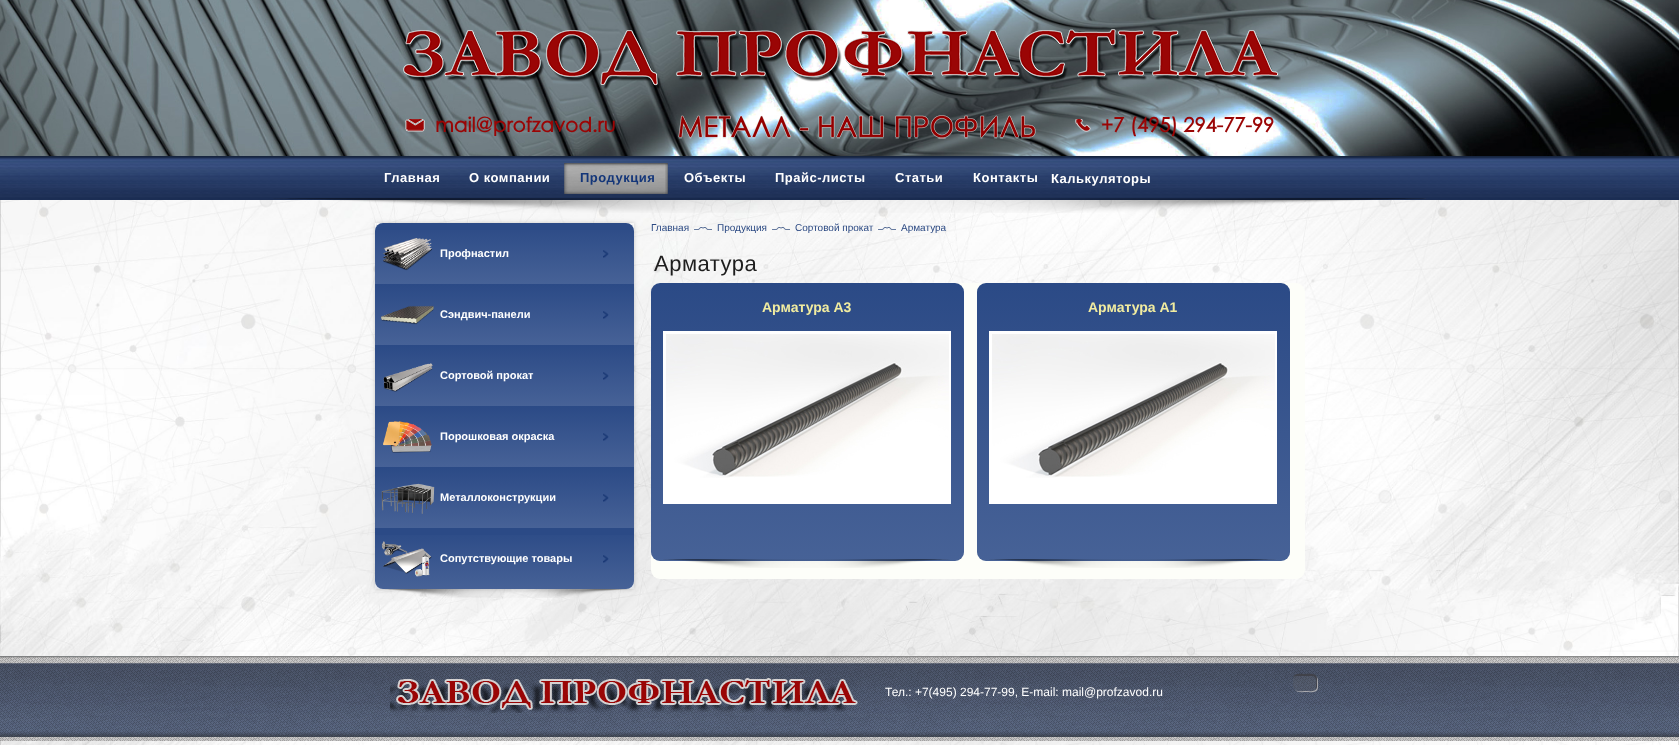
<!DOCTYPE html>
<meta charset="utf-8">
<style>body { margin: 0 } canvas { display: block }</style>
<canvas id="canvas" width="1679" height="745"></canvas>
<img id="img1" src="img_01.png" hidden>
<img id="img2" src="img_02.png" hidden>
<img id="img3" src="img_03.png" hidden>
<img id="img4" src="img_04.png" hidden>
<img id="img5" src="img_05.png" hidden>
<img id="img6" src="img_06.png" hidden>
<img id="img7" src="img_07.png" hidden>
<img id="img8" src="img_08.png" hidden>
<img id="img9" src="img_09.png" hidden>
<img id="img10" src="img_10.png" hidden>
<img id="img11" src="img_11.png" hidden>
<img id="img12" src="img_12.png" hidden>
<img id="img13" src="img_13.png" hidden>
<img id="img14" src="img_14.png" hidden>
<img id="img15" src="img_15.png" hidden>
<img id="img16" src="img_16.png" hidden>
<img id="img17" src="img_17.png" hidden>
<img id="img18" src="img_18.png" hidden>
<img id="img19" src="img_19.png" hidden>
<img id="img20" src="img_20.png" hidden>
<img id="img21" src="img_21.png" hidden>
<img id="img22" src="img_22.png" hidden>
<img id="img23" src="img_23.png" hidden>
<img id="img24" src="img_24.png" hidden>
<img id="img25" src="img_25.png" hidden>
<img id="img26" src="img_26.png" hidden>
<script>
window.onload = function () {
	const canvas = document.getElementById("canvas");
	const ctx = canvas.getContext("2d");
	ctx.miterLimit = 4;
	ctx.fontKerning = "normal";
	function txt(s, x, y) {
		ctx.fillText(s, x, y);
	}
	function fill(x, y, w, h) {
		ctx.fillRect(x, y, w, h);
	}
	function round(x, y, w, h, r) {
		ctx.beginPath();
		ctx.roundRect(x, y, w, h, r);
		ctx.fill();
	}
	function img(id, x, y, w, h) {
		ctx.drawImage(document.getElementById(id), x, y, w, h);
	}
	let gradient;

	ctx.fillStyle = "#FFFFFF";
	fill(0, 0, 1679, 745);
	img("img1", 0, 200, 1679, 545);
	img("img2", 0, 0, 1679, 156);
	img("img3", 403, 29, 878, 110);
	img("img4", 405, 119, 20, 13);
	img("img5", 1075, 119, 16, 13);
	img("img6", 0, 156, 1679, 44);
	img("img7", 663, 163, 5, 31);
	img("img8", 564, 163, 101, 31);
	img("img9", 273, 198, 1153, 15);
	ctx.save();
	ctx.beginPath();
	ctx.moveTo(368, 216);
	ctx.lineTo(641, 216);
	ctx.lineTo(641, 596);
	ctx.lineTo(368, 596);
	ctx.closePath();
	ctx.moveTo(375, 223);
	ctx.lineTo(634, 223);
	ctx.lineTo(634, 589);
	ctx.lineTo(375, 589);
	ctx.closePath();
	ctx.clip("evenodd");
	ctx.fillStyle = "rgba(0, 0, 0, 0.2)";
	ctx.filter = "blur(2px)";
	ctx.beginPath();
	ctx.rect(375, 223, 259, 366);
	ctx.fill();
	ctx.filter = "none";
	ctx.restore();
	ctx.fillStyle = "#2B4A86";
	ctx.beginPath();
	ctx.roundRect(375, 223, 259, 61, [8, 8, 0, 0]);
	ctx.fill();
	gradient = ctx.createLinearGradient(505, 223, 505, 284);
	gradient.addColorStop(0, "rgba(181, 193, 217, 0)");
	gradient.addColorStop(1, "rgba(181, 193, 217, 0.2)");
	ctx.fillStyle = gradient;
	fill(375, 230, 259, 54);
	img("img10", 383, 238, 49, 33);
	img("img11", 603, 250, 6, 8);
	gradient = ctx.createLinearGradient(505, 284, 505, 345);
	gradient.addColorStop(0, "#2B4A86");
	gradient.addColorStop(1, "#476297");
	ctx.fillStyle = gradient;
	fill(375, 284, 259, 61);
	img("img12", 381, 305, 53, 20);
	img("img13", 603, 311, 6, 8);
	gradient = ctx.createLinearGradient(505, 345, 505, 406);
	gradient.addColorStop(0, "#2B4A86");
	gradient.addColorStop(1, "#476297");
	ctx.fillStyle = gradient;
	fill(375, 345, 259, 61);
	img("img14", 383, 363, 50, 29);
	img("img13", 603, 372, 6, 8);
	gradient = ctx.createLinearGradient(505, 406, 505, 467);
	gradient.addColorStop(0, "#2B4A86");
	gradient.addColorStop(1, "#476297");
	ctx.fillStyle = gradient;
	fill(375, 406, 259, 61);
	img("img15", 383, 421, 49, 32);
	img("img13", 603, 433, 6, 8);
	gradient = ctx.createLinearGradient(505, 467, 505, 528);
	gradient.addColorStop(0, "#2B4A86");
	gradient.addColorStop(1, "#476297");
	ctx.fillStyle = gradient;
	fill(375, 467, 259, 61);
	img("img16", 381, 483, 54, 31);
	img("img13", 603, 494, 6, 8);
	ctx.fillStyle = "#2B4A86";
	ctx.beginPath();
	ctx.roundRect(375, 528, 259, 61, [0, 0, 8, 8]);
	ctx.fill();
	gradient = ctx.createLinearGradient(505, 528, 505, 589);
	gradient.addColorStop(0, "rgba(181, 193, 217, 0)");
	gradient.addColorStop(1, "rgba(181, 193, 217, 0.2)");
	ctx.fillStyle = gradient;
	fill(375, 535, 259, 54);
	img("img17", 381, 541, 51, 36);
	img("img11", 603, 555, 6, 8);
	img("img18", 382, 589, 246, 9);
	img("img19", 694, 227, 18, 3);
	img("img20", 772, 227, 18, 3);
	img("img21", 878, 227, 18, 3);
	ctx.fillStyle = "#FDFEF9";
	round(651, 283, 654, 296, 9);
	ctx.fillStyle = "#2B4A86";
	round(651, 283, 313, 278, 9);
	gradient = ctx.createLinearGradient(808, 283, 808, 561);
	gradient.addColorStop(0, "rgba(181, 193, 217, 0)");
	gradient.addColorStop(1, "rgba(181, 193, 217, 0.2)");
	ctx.fillStyle = gradient;
	round(651, 283, 313, 278, 9);
	ctx.fillStyle = "#FFFFFF";
	fill(663, 331, 288, 173);
	img("img22", 666, 334, 283, 144);
	img("img23", 663, 559, 287, 9);
	ctx.fillStyle = "#2B4A86";
	round(977, 283, 313, 278, 9);
	gradient = ctx.createLinearGradient(1134, 283, 1134, 561);
	gradient.addColorStop(0, "rgba(181, 193, 217, 0)");
	gradient.addColorStop(1, "rgba(181, 193, 217, 0.2)");
	ctx.fillStyle = gradient;
	round(977, 283, 313, 278, 9);
	ctx.fillStyle = "#FFFFFF";
	fill(989, 331, 288, 173);
	img("img22", 992, 334, 283, 144);
	img("img23", 989, 559, 287, 9);
	img("img24", 0, 656, 1679, 85);
	img("img25", 390, 678, 468, 35);
	ctx.fillStyle = "rgba(192, 190, 190, 0.8)";
	ctx.beginPath();
	ctx.moveTo(1295, 690);
	ctx.bezierCurveTo(1297.5, 693, 1302.5, 692, 1306, 692);
	ctx.bezierCurveTo(1310, 692, 1317, 693.5, 1318, 688);
	ctx.lineTo(1318, 682.5);
	ctx.bezierCurveTo(1318, 680, 1318, 677.5, 1316, 676);
	ctx.bezierCurveTo(1317.5, 678, 1317, 680.5, 1317, 682.5);
	ctx.lineTo(1317, 687);
	ctx.bezierCurveTo(1316, 692.5, 1309, 691, 1305, 691);
	ctx.bezierCurveTo(1302.5, 691, 1297.5, 692, 1295, 690);
	ctx.closePath();
	ctx.fill();
	img("img26", 1293, 674, 24, 17);
	ctx.fillStyle = "rgba(60, 60, 65, 0.75)";
	ctx.beginPath();
	ctx.moveTo(1297, 676);
	ctx.lineTo(1313, 676);
	ctx.bezierCurveTo(1314.5, 676.5, 1315.5, 678, 1316, 679.5);
	ctx.bezierCurveTo(1316.5, 681.5, 1316, 687, 1315.5, 689.5);
	ctx.bezierCurveTo(1317.5, 687.5, 1317, 685, 1317, 682.5);
	ctx.lineTo(1317, 678);
	ctx.bezierCurveTo(1316, 672.5, 1309, 674, 1305, 674);
	ctx.bezierCurveTo(1301, 674, 1295, 672.5, 1293, 677.5);
	ctx.bezierCurveTo(1294, 676.5, 1295, 676, 1297, 676);
	ctx.closePath();
	ctx.fill();
	ctx.font = "bold 20px Century Gothic";
	ctx.fillStyle = "#9A0505";
	txt("mail@profzavod.ru", 435, 132);
	txt("+7 (495) 294-77-99", 1101, 132);
	ctx.letterSpacing = "0.5px";
	ctx.font = "bold 13px Liberation Sans";
	ctx.fillStyle = "#FFFFFF";
	txt("Главная", 384, 182);
	txt("О компании", 469, 182);
	ctx.fillStyle = "#143679";
	txt("Продукция", 580, 182);
	ctx.fillStyle = "#FFFFFF";
	txt("Объекты", 684, 182);
	txt("Прайс-листы", 775, 182);
	txt("Статьи", 895, 182);
	txt("Контакты", 973, 182);
	txt("Калькуляторы", 1051, 183);
	ctx.letterSpacing = "0px";
	ctx.font = "bold 11px Liberation Sans";
	txt("Профнастил", 440, 257);
	txt("Сэндвич-панели", 440, 318);
	txt("Сортовой прокат", 440, 379);
	txt("Порошковая окраска", 440, 440);
	txt("Металлоконструкции", 440, 501);
	txt("Сопутствующие товары", 440, 562);
	ctx.font = "10px Liberation Sans";
	ctx.fillStyle = "#2A4882";
	txt("Главная", 651, 231);
	txt("Продукция", 717, 231);
	txt("Сортовой прокат", 795, 231);
	txt("Арматура", 901, 231);
	ctx.letterSpacing = "0.5px";
	ctx.font = "22px Liberation Sans";
	ctx.fillStyle = "#1E1E1E";
	txt("Арматура", 654, 271);
	ctx.letterSpacing = "0px";
	ctx.font = "bold 14px Liberation Sans";
	ctx.fillStyle = "#F1ECA0";
	txt("Арматура А3", 762, 312);
	txt("Арматура А1", 1088, 312);
	ctx.font = "12px Liberation Sans";
	ctx.fillStyle = "#FFFFFF";
	txt("Тел.: +7(495) 294-77-99, E-mail: mail@profzavod.ru", 885, 696);
};
</script>
